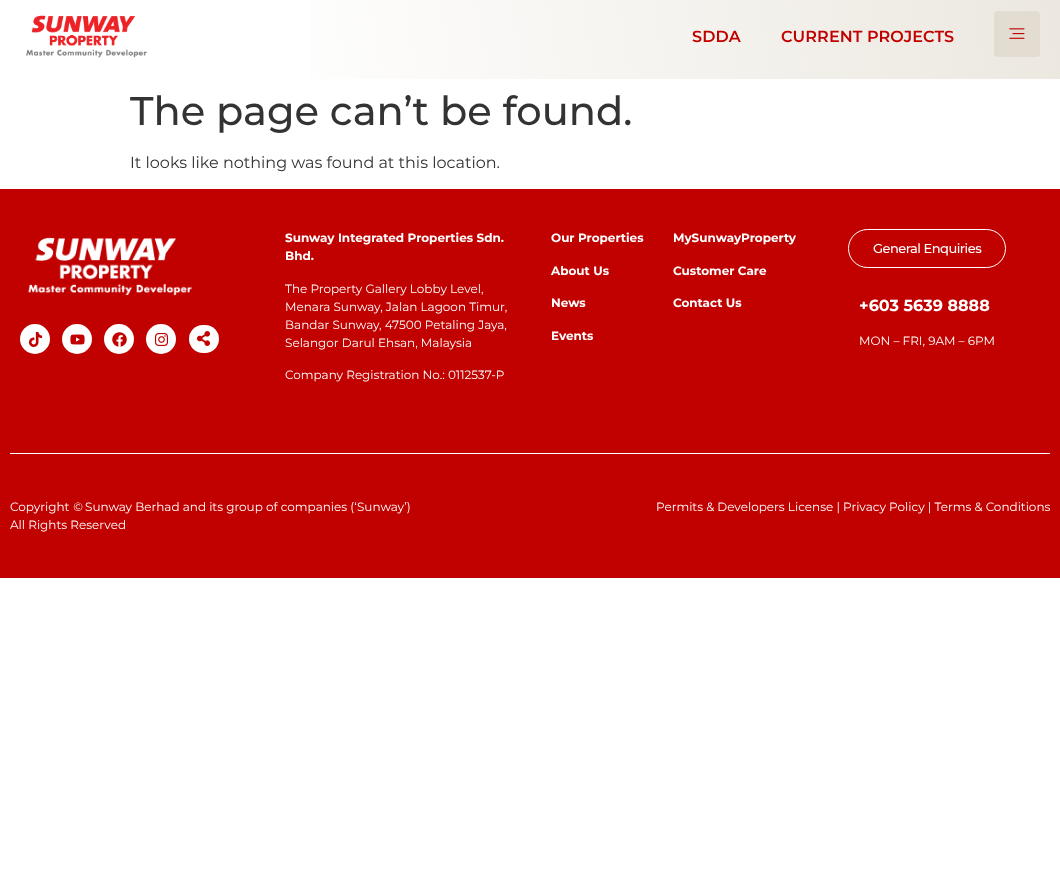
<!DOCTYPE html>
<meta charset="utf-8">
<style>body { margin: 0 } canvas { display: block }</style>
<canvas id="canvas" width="1060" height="880"></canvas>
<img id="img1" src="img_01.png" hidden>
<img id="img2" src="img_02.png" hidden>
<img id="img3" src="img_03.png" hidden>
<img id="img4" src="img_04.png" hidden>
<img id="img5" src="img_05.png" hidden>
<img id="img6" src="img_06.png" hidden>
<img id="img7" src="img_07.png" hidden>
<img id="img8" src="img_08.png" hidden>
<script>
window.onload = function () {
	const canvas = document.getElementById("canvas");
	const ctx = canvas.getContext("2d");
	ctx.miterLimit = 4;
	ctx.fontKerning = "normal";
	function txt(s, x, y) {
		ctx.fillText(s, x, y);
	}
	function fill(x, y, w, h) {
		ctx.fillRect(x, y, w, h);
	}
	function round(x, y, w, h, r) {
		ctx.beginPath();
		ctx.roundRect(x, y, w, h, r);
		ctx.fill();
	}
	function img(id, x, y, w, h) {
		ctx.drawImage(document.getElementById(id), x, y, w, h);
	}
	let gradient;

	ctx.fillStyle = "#FFFFFF";
	fill(0, 0, 1060, 880);
	gradient = ctx.createLinearGradient(9, 131, 1051, -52);
	gradient.addColorStop(0.24, "#FFFFFF");
	gradient.addColorStop(1, "#ECE8E0");
	ctx.fillStyle = gradient;
	fill(310, 0, 750, 79);
	img("img1", 26, 15, 121, 43);
	ctx.fillStyle = "#E3DDD1";
	round(994, 11, 46, 46, 4);
	img("img2", 1009, 28, 16, 11);
	ctx.fillStyle = "#C10000";
	fill(0, 189, 1060, 389);
	img("img3", 28, 237, 164, 59);
	ctx.fillStyle = "#FFFFFF";
	ctx.beginPath();
	ctx.arc(35, 339, 15, 0, Math.PI * 2);
	ctx.fill();
	img("img4", 29, 332, 14, 15);
	ctx.beginPath();
	ctx.arc(77, 339, 15, 0, Math.PI * 2);
	ctx.fill();
	img("img5", 70, 334, 15, 11);
	ctx.beginPath();
	ctx.arc(119, 339, 15, 0, Math.PI * 2);
	ctx.fill();
	img("img6", 112, 332, 15, 15);
	ctx.beginPath();
	ctx.arc(161, 339, 15, 0, Math.PI * 2);
	ctx.fill();
	img("img7", 155, 333, 14, 13);
	round(189, 325, 30, 28, 14);
	img("img8", 197, 331, 13, 15);
	ctx.beginPath();
	ctx.roundRect(848.5, 229.5, 157, 38, 19);
	ctx.strokeStyle = "#FFFFFF";
	ctx.stroke();
	fill(10, 453, 1040, 1);
	ctx.letterSpacing = "0.1px";
	ctx.font = "600 16px Montserrat";
	ctx.fillStyle = "#C10000";
	txt("SDDA", 692, 42);
	txt("CURRENT PROJECTS", 781, 42);
	ctx.letterSpacing = "0px";
	ctx.font = "500 40px Montserrat";
	ctx.fillStyle = "#333333";
	txt("The page can’t be found.", 130, 125);
	ctx.font = "16px Montserrat";
	txt("It looks like nothing was found at this location.", 130, 168);
	ctx.font = "bold 12px Montserrat";
	ctx.fillStyle = "#FFFFFF";
	txt("Sunway Integrated Properties Sdn.", 285, 242);
	txt("Bhd.", 285, 260);
	ctx.font = "12px Montserrat";
	txt("The Property Gallery Lobby Level,", 285, 293);
	txt("Menara Sunway, Jalan Lagoon Timur,", 285, 311);
	txt("Bandar Sunway, 47500 Petaling Jaya,", 285, 329);
	txt("Selangor Darul Ehsan, Malaysia", 285, 347);
	txt("Company Registration No.: 0112537-P", 285, 379);
	ctx.font = "bold 12px Montserrat";
	txt("Our Properties", 551, 242);
	txt("About Us", 551, 275);
	txt("News", 551, 307);
	txt("Events", 551, 340);
	txt("MySunwayProperty", 673, 242);
	txt("Customer Care", 673, 275);
	txt("Contact Us", 673, 307);
	ctx.letterSpacing = "-0.5px";
	ctx.font = "500 13px Montserrat";
	txt("General Enquiries", 873, 253);
	ctx.letterSpacing = "0px";
	ctx.font = "bold 16px Montserrat";
	txt("+603 5639 8888", 859, 311);
	ctx.font = "12px Montserrat";
	txt("MON – FRI, 9AM – 6PM", 859, 345);
	txt("Copyright", 10, 511);
	ctx.font = "italic 12px Montserrat";
	txt("©", 73, 511);
	ctx.font = "12px Montserrat";
	txt("Sunway Berhad and its group of companies (‘Sunway’)", 85, 511);
	txt("All Rights Reserved", 10, 529);
	txt("Permits & Developers License | Privacy Policy | Terms & Conditions", 656, 511);
};
</script>
